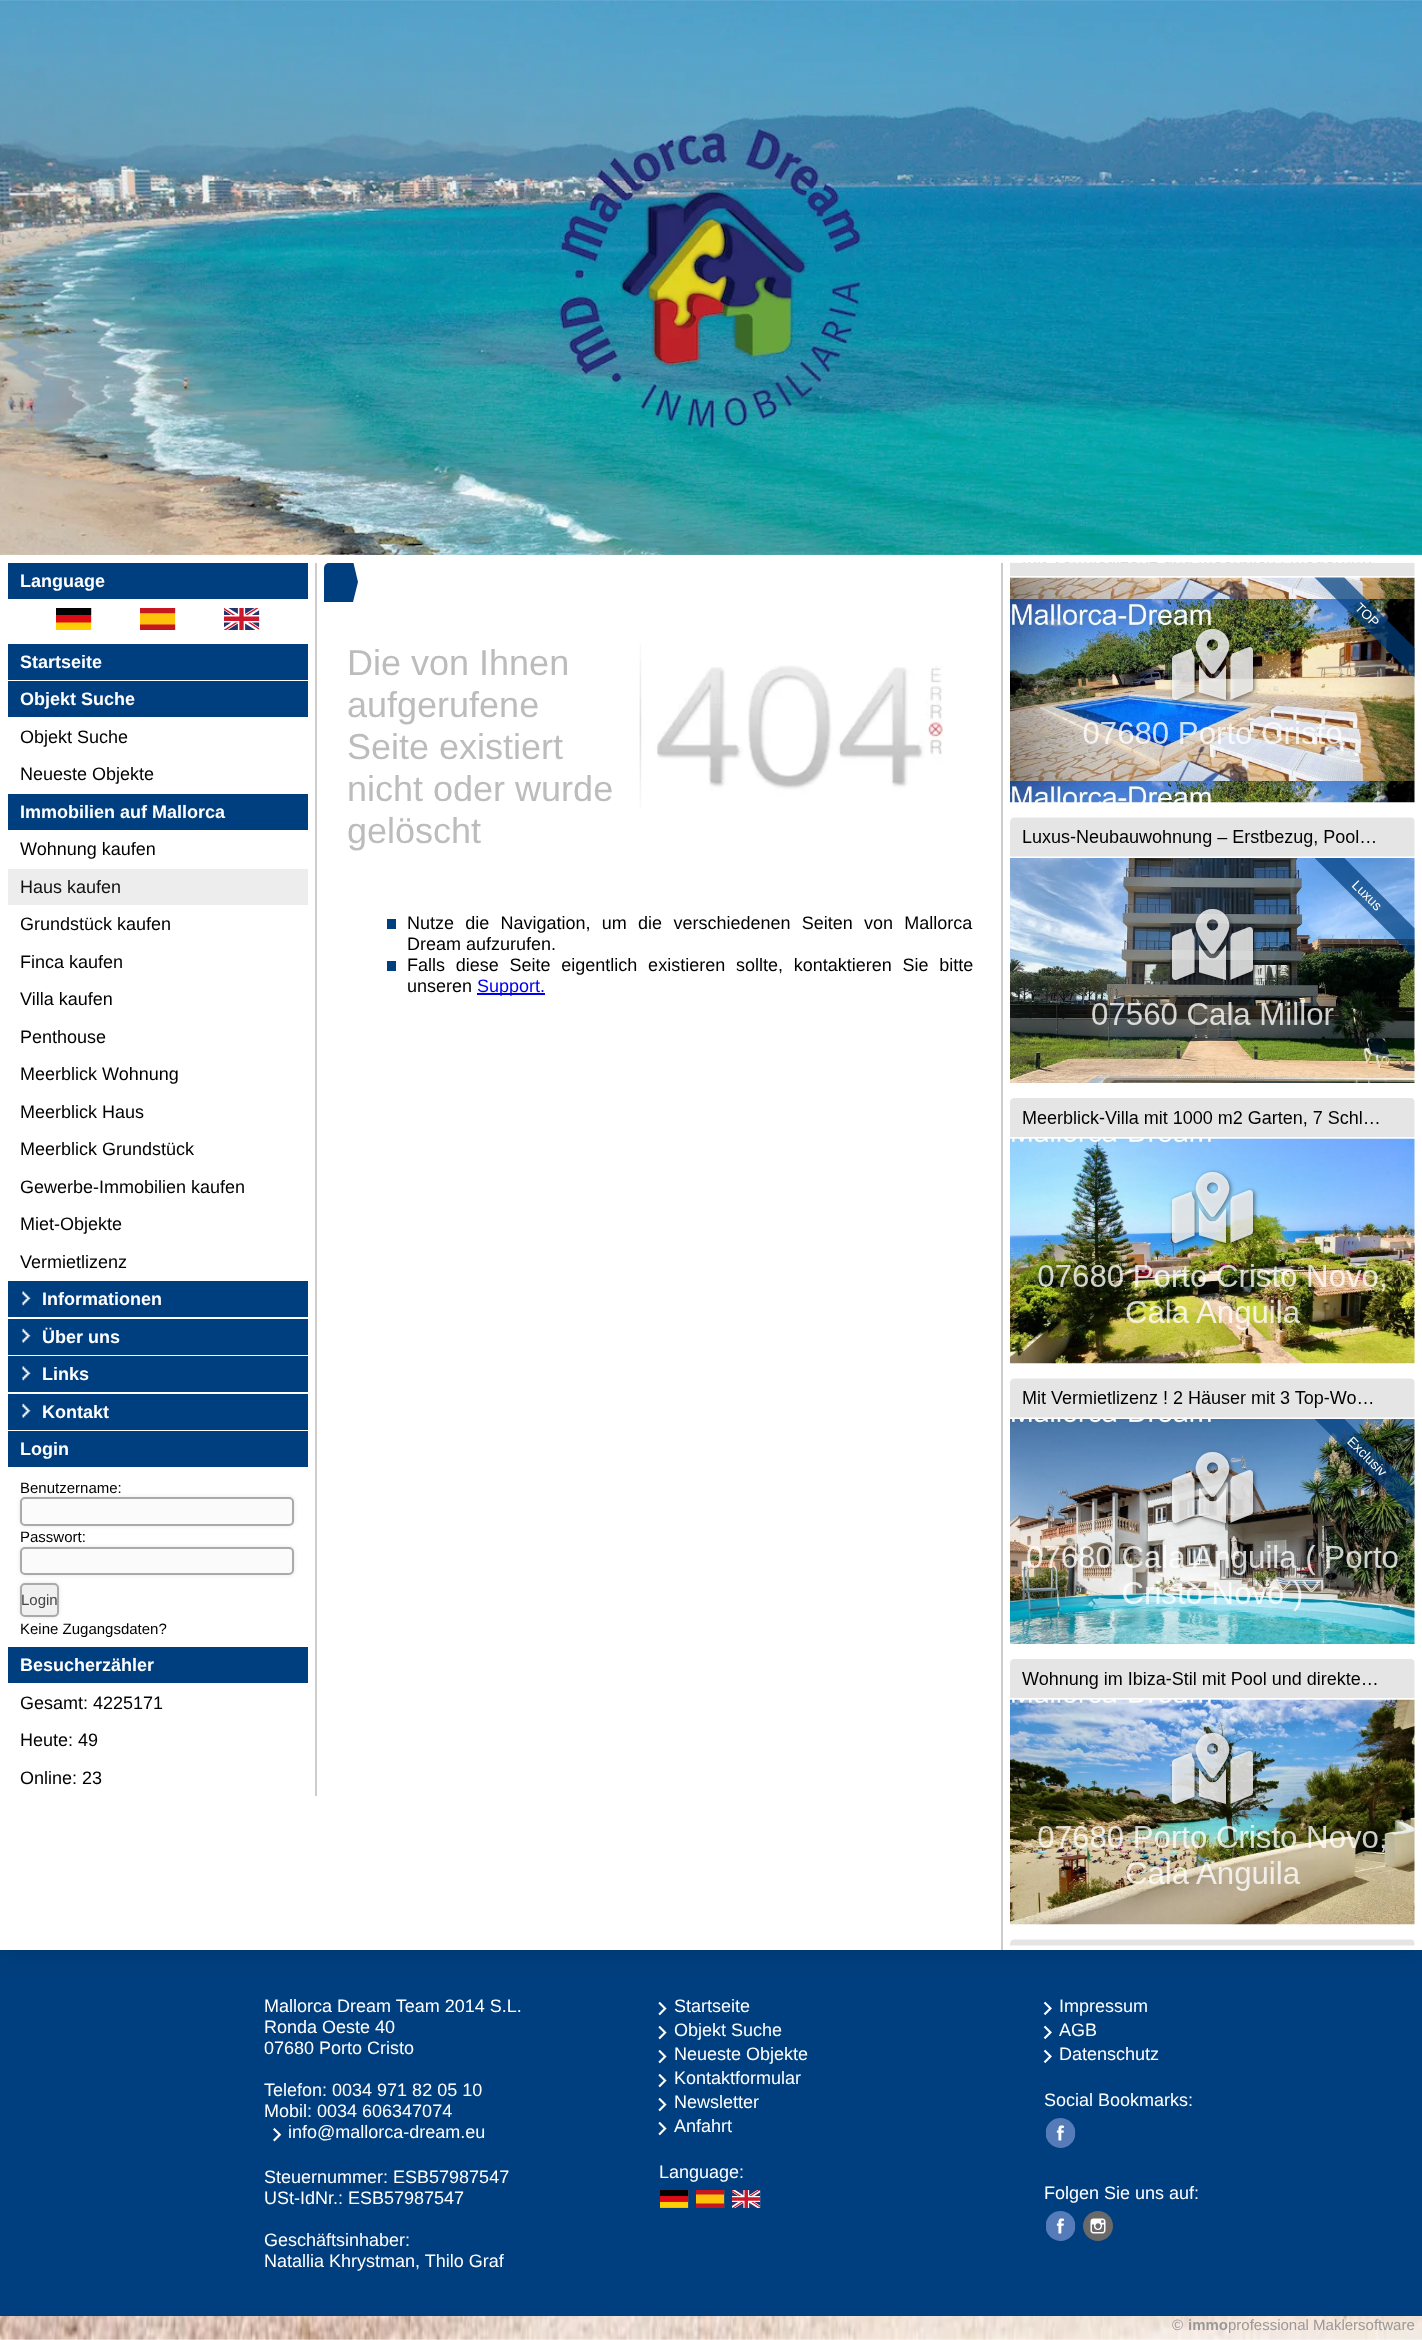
<!DOCTYPE html>
<meta charset="utf-8">
<style>body { margin: 0 } canvas { display: block }</style>
<canvas id="canvas" width="1422" height="2340"></canvas>
<img id="img1" src="img_01.png" hidden>
<img id="img2" src="img_02.png" hidden>
<img id="img3" src="img_03.png" hidden>
<img id="img4" src="img_04.png" hidden>
<img id="img5" src="img_05.png" hidden>
<img id="img6" src="img_06.png" hidden>
<img id="img7" src="img_07.png" hidden>
<img id="img8" src="img_08.png" hidden>
<img id="img9" src="img_09.png" hidden>
<img id="img10" src="img_10.png" hidden>
<img id="img11" src="img_11.png" hidden>
<img id="img12" src="img_12.png" hidden>
<img id="img13" src="img_13.png" hidden>
<img id="img14" src="img_14.png" hidden>
<img id="img15" src="img_15.png" hidden>
<img id="img16" src="img_16.png" hidden>
<img id="img17" src="img_17.png" hidden>
<script>
window.onload = function () {
	const canvas = document.getElementById("canvas");
	const ctx = canvas.getContext("2d");
	ctx.miterLimit = 4;
	ctx.fontKerning = "normal";
	function txt(s, x, y) {
		ctx.fillText(s, x, y);
	}
	function fill(x, y, w, h) {
		ctx.fillRect(x, y, w, h);
	}
	function img(id, x, y, w, h) {
		ctx.drawImage(document.getElementById(id), x, y, w, h);
	}

	ctx.fillStyle = "#FFFFFF";
	fill(0, 0, 1422, 2340);
	img("img1", 0, 2316, 1422, 24);
	ctx.fillStyle = "#003F7F";
	fill(0, 1950, 1422, 366);
	ctx.fillStyle = "rgba(0, 0, 0, 0.14)";
	ctx.filter = "blur(13.5px)";
	ctx.beginPath();
	ctx.rect(0, 555, 1422, 1395);
	ctx.fill();
	ctx.filter = "none";
	img("img2", 0, 0, 1422, 555);
	ctx.fillStyle = "#FFFFFF";
	fill(0, 555, 1422, 1395);
	ctx.fillStyle = "#CCCCCC";
	fill(315, 563, 2, 1233);
	ctx.fillStyle = "#003F7F";
	fill(8, 563, 300, 36);
	img("img3", 56, 608, 36, 22);
	img("img4", 140, 608, 36, 22);
	img("img5", 224, 608, 36, 22);
	fill(8, 644, 300, 36);
	fill(8, 681, 300, 36);
	fill(8, 794, 300, 36);
	ctx.fillStyle = "#EDEDED";
	fill(8, 869, 300, 36);
	ctx.fillStyle = "#003F7F";
	fill(8, 1281, 300, 36);
	img("img6", 22, 1291, 9, 15);
	fill(8, 1319, 300, 36);
	img("img7", 22, 1328, 9, 15);
	fill(8, 1356, 300, 36);
	img("img6", 22, 1366, 9, 15);
	fill(8, 1394, 300, 36);
	img("img7", 22, 1403, 9, 15);
	fill(8, 1431, 300, 36);
	ctx.fillStyle = "rgba(0, 0, 0, 0.1)";
	ctx.filter = "blur(2px)";
	ctx.beginPath();
	ctx.roundRect(20, 1497, 274, 29, 5);
	ctx.fill();
	ctx.filter = "none";
	ctx.fillStyle = "#FBFBFB";
	ctx.beginPath();
	ctx.roundRect(21, 1498, 272, 27, 4);
	ctx.fill();
	ctx.strokeStyle = "#AAAAAA";
	ctx.lineWidth = 2;
	ctx.stroke();
	ctx.fillStyle = "rgba(0, 0, 0, 0.1)";
	ctx.filter = "blur(2px)";
	ctx.beginPath();
	ctx.roundRect(20, 1547, 274, 28, 5);
	ctx.fill();
	ctx.filter = "none";
	ctx.fillStyle = "#FBFBFB";
	ctx.beginPath();
	ctx.roundRect(21, 1548, 272, 26, 4);
	ctx.fill();
	ctx.stroke();
	ctx.fillStyle = "rgba(0, 0, 0, 0.1)";
	ctx.filter = "blur(2px)";
	ctx.beginPath();
	ctx.roundRect(20, 1583, 39, 34, 5);
	ctx.fill();
	ctx.filter = "none";
	ctx.fillStyle = "#F0F0F0";
	ctx.beginPath();
	ctx.roundRect(21, 1584, 37, 32, 4);
	ctx.fill();
	ctx.stroke();
	ctx.fillStyle = "#003F7F";
	fill(8, 1647, 300, 36);
	ctx.beginPath();
	ctx.roundRect(324, 563, 17, 39, [5, 0, 0, 0]);
	ctx.fill();
	ctx.beginPath();
	ctx.moveTo(353.5, 563);
	ctx.lineTo(358, 582);
	ctx.lineTo(353, 602);
	ctx.lineTo(340, 602);
	ctx.lineTo(340, 563);
	ctx.closePath();
	ctx.fill();
	img("img8", 639, 644, 304, 164);
	fill(387, 919, 9, 10);
	fill(387, 961, 9, 10);
	ctx.fillStyle = "#0000EE";
	fill(477, 993, 68, 2);
	ctx.fillStyle = "#CCCCCC";
	fill(1001, 563, 2, 1387);
	img("img9", 1010, 562, 405, 1384);
	img("img10", 273, 2128, 9, 14);
	img("img11", 658, 2001, 9, 15);
	img("img11", 658, 2025, 9, 15);
	img("img11", 658, 2049, 9, 15);
	img("img11", 658, 2073, 9, 15);
	img("img11", 658, 2097, 9, 15);
	img("img11", 658, 2121, 9, 15);
	img("img12", 660, 2190, 29, 18);
	img("img13", 696, 2190, 29, 18);
	img("img14", 732, 2190, 29, 18);
	img("img15", 1043, 2001, 9, 15);
	img("img15", 1043, 2025, 9, 15);
	img("img15", 1043, 2049, 9, 15);
	img("img16", 1046, 2118, 30, 30);
	img("img16", 1046, 2211, 30, 30);
	img("img17", 1083, 2211, 30, 30);
	ctx.font = "bold 18px Liberation Sans";
	ctx.fillStyle = "#FFFFFF";
	txt("Language", 20, 587);
	txt("Startseite", 20, 668);
	txt("Objekt Suche", 20, 705);
	ctx.font = "18px Liberation Sans";
	ctx.fillStyle = "#000000";
	txt("Objekt Suche", 20, 743);
	txt("Neueste Objekte", 20, 780);
	ctx.font = "bold 18px Liberation Sans";
	ctx.fillStyle = "#FFFFFF";
	txt("Immobilien auf Mallorca", 20, 818);
	ctx.font = "18px Liberation Sans";
	ctx.fillStyle = "#000000";
	txt("Wohnung kaufen", 20, 855);
	ctx.fillStyle = "#111111";
	txt("Haus kaufen", 20, 893);
	ctx.fillStyle = "#000000";
	txt("Grundstück kaufen", 20, 930);
	txt("Finca kaufen", 20, 968);
	txt("Villa kaufen", 20, 1005);
	txt("Penthouse", 20, 1043);
	txt("Meerblick Wohnung", 20, 1080);
	txt("Meerblick Haus", 20, 1118);
	txt("Meerblick Grundstück", 20, 1155);
	txt("Gewerbe-Immobilien kaufen", 20, 1193);
	txt("Miet-Objekte", 20, 1230);
	txt("Vermietlizenz", 20, 1268);
	ctx.font = "bold 18px Liberation Sans";
	ctx.fillStyle = "#FFFFFF";
	txt("Informationen", 42, 1305);
	txt("Über uns", 42, 1343);
	txt("Links", 42, 1380);
	txt("Kontakt", 42, 1418);
	txt("Login", 20, 1455);
	ctx.font = "15px Liberation Sans";
	ctx.fillStyle = "#000000";
	txt("Benutzername:", 20, 1493);
	txt("Passwort:", 20, 1542);
	ctx.fillStyle = "#444444";
	txt("Login", 21, 1605);
	ctx.fillStyle = "#000000";
	txt("Keine Zugangsdaten?", 20, 1634);
	ctx.font = "bold 18px Liberation Sans";
	ctx.fillStyle = "#FFFFFF";
	txt("Besucherzähler", 20, 1671);
	ctx.font = "18px Liberation Sans";
	ctx.fillStyle = "#000000";
	txt("Gesamt: 4225171", 20, 1709);
	txt("Heute: 49", 20, 1746);
	txt("Online: 23", 20, 1784);
	ctx.font = "36px Liberation Sans";
	ctx.fillStyle = "#BCBCBC";
	txt("Die von Ihnen", 347, 675);
	txt("aufgerufene", 347, 717);
	txt("Seite existiert", 347, 759);
	txt("nicht oder wurde", 347, 801);
	txt("gelöscht", 347, 843);
	ctx.wordSpacing = "6.25px";
	ctx.font = "18px Liberation Sans";
	ctx.fillStyle = "#000000";
	txt("Nutze die Navigation, um die verschiedenen Seiten von Mallorca", 407, 929);
	ctx.wordSpacing = "0px";
	txt("Dream aufzurufen.", 407, 950);
	ctx.wordSpacing = "5.75px";
	txt("Falls diese Seite eigentlich existieren sollte, kontaktieren Sie bitte", 407, 971);
	ctx.wordSpacing = "0px";
	txt("unseren", 407, 992);
	ctx.fillStyle = "#0000EE";
	txt("Support.", 477, 992);
	ctx.fillStyle = "#FFFFFF";
	txt("Mallorca Dream Team 2014 S.L.", 264, 2012);
	txt("Ronda Oeste 40", 264, 2033);
	txt("07680 Porto Cristo", 264, 2054);
	txt("Telefon: 0034 971 82 05 10", 264, 2096);
	txt("Mobil: 0034 606347074", 264, 2117);
	txt("info@mallorca-dream.eu", 288, 2138);
	txt("Steuernummer: ESB57987547", 264, 2183);
	txt("USt-IdNr.: ESB57987547", 264, 2204);
	txt("Geschäftsinhaber:", 264, 2246);
	txt("Natallia Khrystman, Thilo Graf", 264, 2267);
	txt("Startseite", 674, 2012);
	txt("Objekt Suche", 674, 2036);
	txt("Neueste Objekte", 674, 2060);
	txt("Kontaktformular", 674, 2084);
	txt("Newsletter", 674, 2108);
	txt("Anfahrt", 674, 2132);
	txt("Language:", 659, 2178);
	txt("Impressum", 1059, 2012);
	txt("AGB", 1059, 2036);
	txt("Datenschutz", 1059, 2060);
	txt("Social Bookmarks:", 1044, 2106);
	txt("Folgen Sie uns auf:", 1044, 2199);
	ctx.font = "15px Liberation Sans";
	ctx.fillStyle = "#999999";
	txt("©", 1172, 2330);
	ctx.font = "bold 15px Liberation Sans";
	txt("immo", 1188, 2330);
	ctx.font = "15px Liberation Sans";
	txt("professional Maklersoftware", 1228, 2330);
};
</script>
